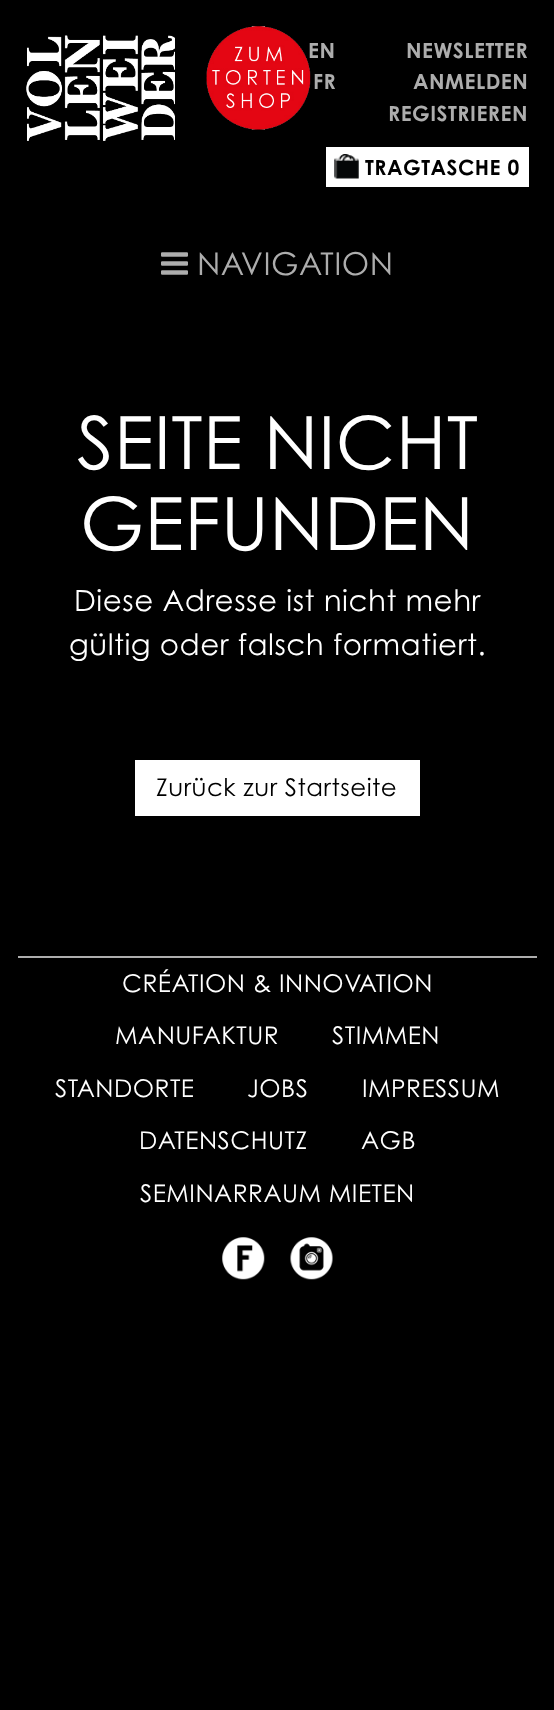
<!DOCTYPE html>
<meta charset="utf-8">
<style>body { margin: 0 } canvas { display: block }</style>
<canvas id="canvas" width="554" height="1710"></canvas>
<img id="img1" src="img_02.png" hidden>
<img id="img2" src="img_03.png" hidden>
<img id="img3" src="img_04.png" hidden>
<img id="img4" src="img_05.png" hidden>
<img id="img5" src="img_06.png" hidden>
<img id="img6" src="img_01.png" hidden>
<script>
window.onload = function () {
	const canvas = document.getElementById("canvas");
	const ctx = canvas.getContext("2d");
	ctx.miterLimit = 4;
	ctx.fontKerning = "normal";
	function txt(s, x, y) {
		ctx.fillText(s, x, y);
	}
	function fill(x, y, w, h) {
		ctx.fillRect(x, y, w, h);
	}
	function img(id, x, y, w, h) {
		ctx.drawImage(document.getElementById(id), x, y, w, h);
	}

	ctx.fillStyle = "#000000";
	fill(0, 0, 554, 1710);
	img("img1", 26, 35, 149, 106);
	ctx.fillStyle = "#FFFFFF";
	fill(326, 147, 203, 40);
	img("img2", 334, 154, 25, 25);
	img("img3", 161, 252, 27, 23);
	fill(135, 760, 285, 56);
	ctx.fillStyle = "#ADADAD";
	fill(18, 956, 519, 2);
	img("img4", 222, 1237, 43, 43);
	img("img5", 290, 1237, 43, 43);
	ctx.letterSpacing = "0.5px";
	ctx.font = "bold 21px Century Gothic";
	txt("EN", 308, 58);
	img("img6", 206, 26, 105, 104);
	txt("FR", 313, 89);
	txt("ANMELDEN", 413, 89);
	txt("REGISTRIEREN", 388, 121);
	ctx.fillStyle = "#000000";
	txt("TRAGTASCHE 0", 365, 175);
	ctx.fillStyle = "#ADADAD";
	txt("NEWSLETTER", 406, 58);
	ctx.font = "31.5px Century Gothic";
	txt("NAVIGATION", 197, 275);
	ctx.font = "73.5px Century Gothic";
	ctx.fillStyle = "#FFFFFF";
	txt("SEITE NICHT", 77, 469);
	txt("GEFUNDEN", 80, 550);
	ctx.font = "29.4px Century Gothic";
	txt("Diese Adresse ist nicht mehr", 74, 611);
	txt("gültig oder falsch formatiert.", 69, 655);
	ctx.font = "24.5px Century Gothic";
	ctx.fillStyle = "#000000";
	txt("Zurück zur Startseite", 156, 796);
	ctx.fillStyle = "#FFFFFF";
	txt("CRÉATION & INNOVATION", 122, 992);
	txt("MANUFAKTUR", 115, 1044);
	txt("STIMMEN", 332, 1044);
	txt("STANDORTE", 55, 1097);
	txt("JOBS", 247, 1097);
	txt("IMPRESSUM", 362, 1097);
	txt("DATENSCHUTZ", 139, 1149);
	txt("AGB", 361, 1149);
	txt("SEMINARRAUM MIETEN", 140, 1202);
};
</script>
